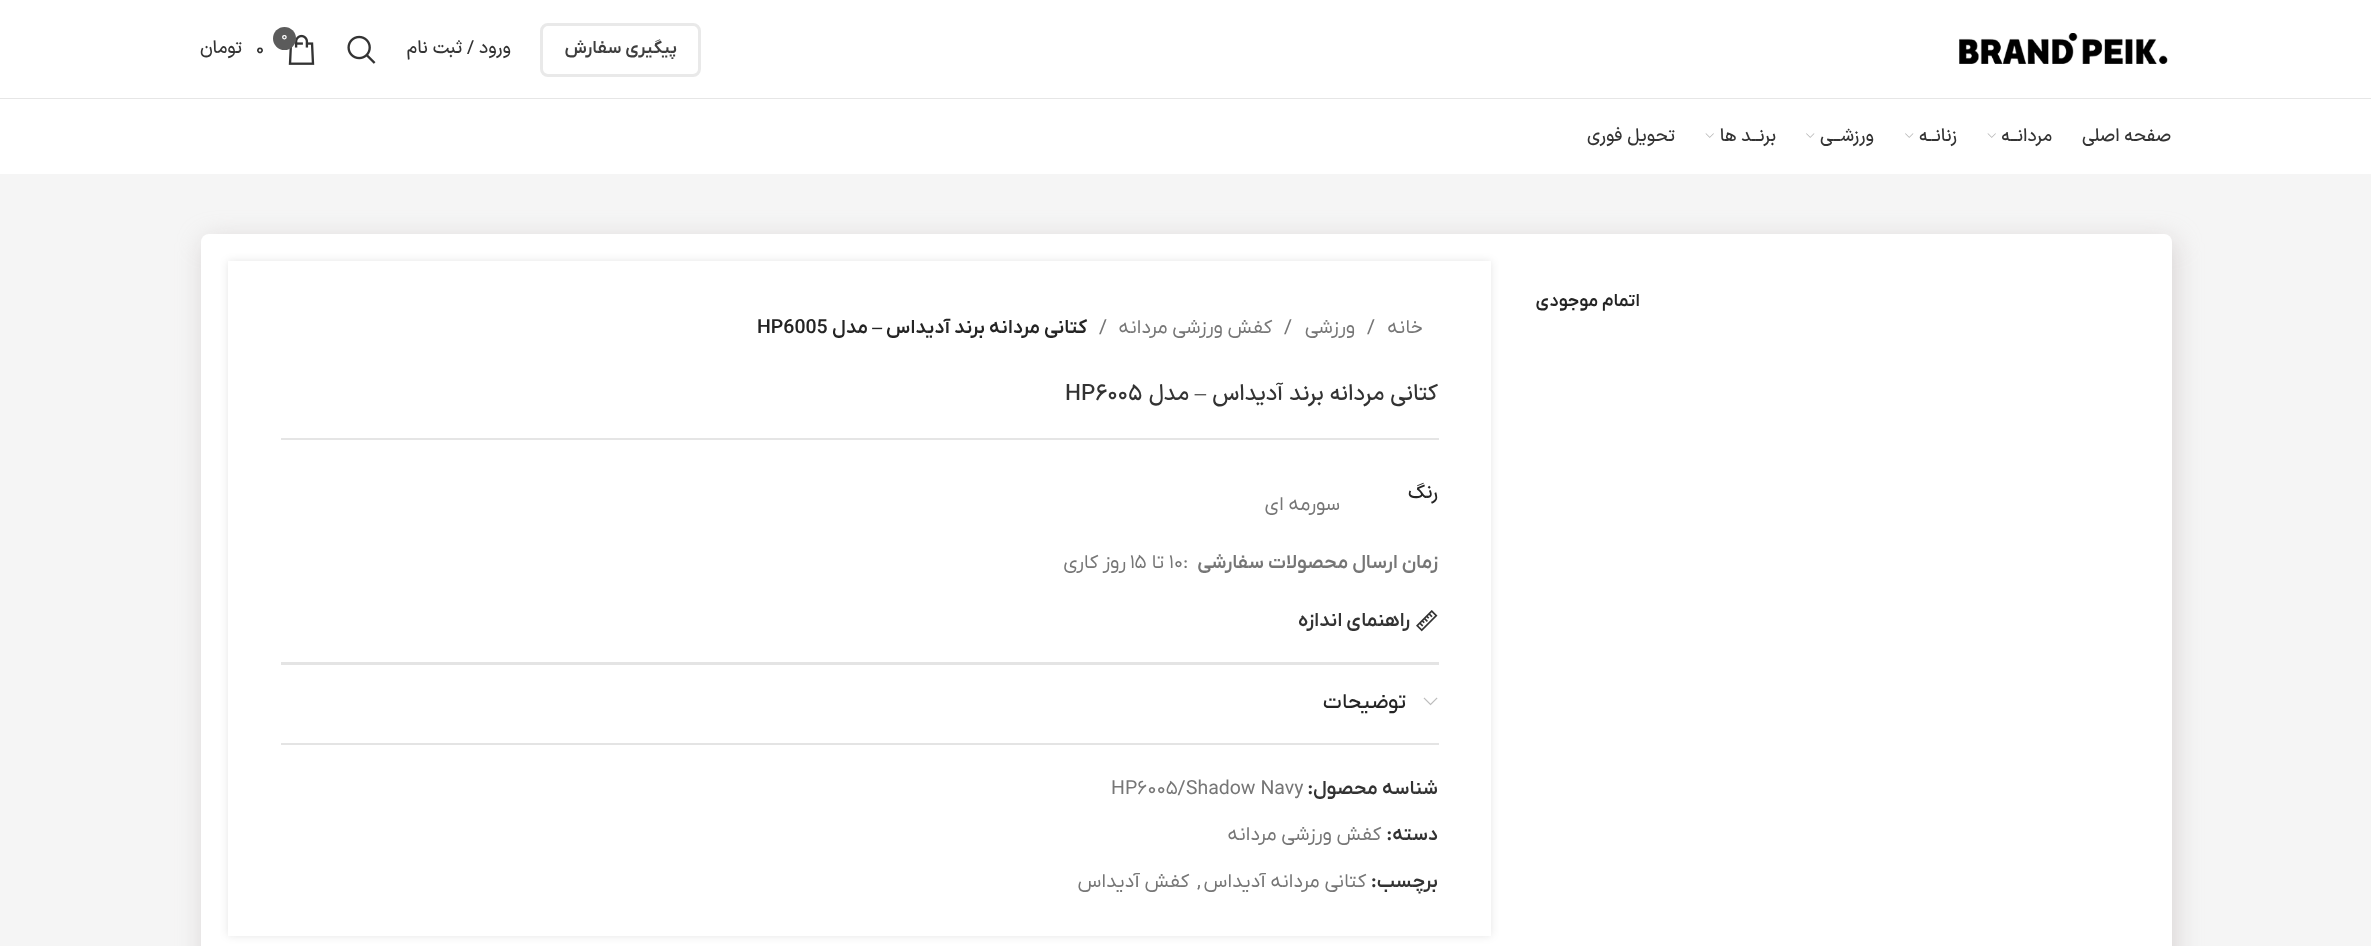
<!DOCTYPE html>
<meta charset="utf-8">
<style>body { margin: 0 } canvas { display: block }</style>
<canvas id="canvas" width="2371" height="946"></canvas>
<img id="img1" src="img_01.png" hidden>
<img id="img2" src="img_02.png" hidden>
<img id="img3" src="img_03.png" hidden>
<img id="img4" src="img_04.png" hidden>
<img id="img5" src="img_05.png" hidden>
<img id="img6" src="img_06.png" hidden>
<img id="img7" src="img_07.png" hidden>
<script>
window.onload = function () {
	const canvas = document.getElementById("canvas");
	const ctx = canvas.getContext("2d");
	ctx.miterLimit = 4;
	ctx.fontKerning = "normal";
	function txt(s, x, y) {
		ctx.fillText(s, x, y);
	}
	function fill(x, y, w, h) {
		ctx.fillRect(x, y, w, h);
	}
	function round(x, y, w, h, r) {
		ctx.beginPath();
		ctx.roundRect(x, y, w, h, r);
		ctx.fill();
	}
	function img(id, x, y, w, h) {
		ctx.drawImage(document.getElementById(id), x, y, w, h);
	}

	ctx.fillStyle = "#FFFFFF";
	fill(0, 0, 2371, 946);
	ctx.fillStyle = "#E6E6E6";
	fill(0, 98, 2371, 1);
	img("img1", 1959, 33, 209, 31);
	ctx.beginPath();
	ctx.roundRect(541.5, 24.5, 158, 51, 6.5);
	ctx.strokeStyle = "#E9E9E9";
	ctx.lineWidth = 3;
	ctx.stroke();
	img("img2", 347, 35, 29, 29);
	img("img3", 288, 34, 27, 31);
	ctx.fillStyle = "#5B5B5B";
	ctx.beginPath();
	ctx.arc(284.5, 38.5, 11.5, 0, Math.PI * 2);
	ctx.fill();
	img("img4", 1987, 133, 9, 5);
	img("img5", 1905, 133, 9, 5);
	img("img5", 1806, 133, 9, 5);
	img("img4", 1705, 133, 9, 5);
	ctx.fillStyle = "#F5F5F5";
	fill(0, 174, 2371, 772);
	ctx.fillStyle = "rgba(187, 178, 178, 0.5)";
	ctx.filter = "blur(13.5px)";
	ctx.beginPath();
	ctx.roundRect(204, 240, 1971, 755, 8);
	ctx.fill();
	ctx.filter = "none";
	ctx.fillStyle = "#FFFFFF";
	round(201, 234, 1971, 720, 8);
	ctx.save();
	ctx.beginPath();
	ctx.moveTo(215, 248);
	ctx.lineTo(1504, 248);
	ctx.lineTo(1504, 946);
	ctx.lineTo(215, 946);
	ctx.closePath();
	ctx.moveTo(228, 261);
	ctx.lineTo(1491, 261);
	ctx.lineTo(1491, 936);
	ctx.lineTo(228, 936);
	ctx.closePath();
	ctx.clip("evenodd");
	ctx.fillStyle = "rgba(0, 0, 0, 0.1)";
	ctx.filter = "blur(4px)";
	ctx.beginPath();
	ctx.rect(228, 261, 1263, 675);
	ctx.fill();
	ctx.filter = "none";
	ctx.restore();
	ctx.fillStyle = "#E5E5E5";
	fill(281, 438, 1158, 2);
	img("img6", 1416, 610, 22, 22);
	ctx.fillStyle = "#E4E4E4";
	fill(281, 662, 1158, 3);
	fill(281, 743, 1158, 2);
	img("img7", 1423, 697, 15, 9);
	ctx.direction = "rtl";
	ctx.font = "600 18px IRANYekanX";
	ctx.fillStyle = "#3E3E3E";
	txt("پیگیری سفارش", 677, 53);
	ctx.font = "500 18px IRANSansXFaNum";
	ctx.fillStyle = "#333333";
	txt("ورود / ثبت نام", 511, 53);
	ctx.direction = "ltr";
	ctx.font = "14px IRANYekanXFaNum";
	ctx.fillStyle = "#FFFFFF";
	txt("0", 281, 40);
	ctx.font = "500 18px IRANSansXFaNum";
	ctx.fillStyle = "#333333";
	txt("۰", 256, 54);
	ctx.direction = "rtl";
	txt("تومان", 242, 53);
	txt("صفحه اصلی", 2171, 141);
	txt("مردانــه", 2052, 141);
	txt("زنانــه", 1957, 141);
	txt("ورزشــی", 1874, 141);
	txt("برنــد ها", 1776, 141);
	txt("تحویل فوری", 1675, 141);
	ctx.font = "600 18px IRANYekanX";
	ctx.fillStyle = "#242424";
	txt("اتمام موجودی", 1640, 306);
	ctx.font = "19.5px IRANYekanXFaNum";
	ctx.fillStyle = "#767676";
	txt("خانه", 1423, 333);
	ctx.direction = "ltr";
	txt("/", 1367, 333);
	ctx.direction = "rtl";
	txt("ورزشی", 1355, 333);
	ctx.direction = "ltr";
	txt("/", 1284, 333);
	ctx.direction = "rtl";
	txt("کفش ورزشی مردانه", 1272, 333);
	ctx.direction = "ltr";
	txt("/", 1099, 333);
	ctx.direction = "rtl";
	ctx.font = "600 19.5px IRANYekanX";
	ctx.fillStyle = "#242424";
	txt("کتانی مردانه برند آدیداس", 1087, 333);
	ctx.font = "bold 19.5px Liberation Serif";
	txt("–", 882, 333);
	ctx.font = "600 19.5px IRANYekanX";
	txt("مدل", 868, 333);
	ctx.direction = "ltr";
	txt("HP6005", 757, 333);
	ctx.direction = "rtl";
	ctx.font = "500 22.5px IRANSansXFaNum";
	ctx.fillStyle = "#333333";
	txt("کتانی مردانه برند آدیداس", 1438, 400);
	ctx.font = "22.5px Liberation Serif";
	txt("–", 1206, 400);
	ctx.font = "500 22.5px IRANSansXFaNum";
	txt("مدل", 1189, 400);
	ctx.direction = "ltr";
	txt("HP6005", 1065, 400);
	ctx.direction = "rtl";
	ctx.font = "500 19.5px IRANSansXFaNum";
	ctx.fillStyle = "#242424";
	txt("رنگ", 1438, 498);
	ctx.font = "19.5px IRANYekanXFaNum";
	ctx.fillStyle = "#767676";
	txt("سورمه ای", 1340, 510);
	ctx.font = "600 19.5px IRANYekanX";
	txt("زمان ارسال محصولات سفارشی", 1438, 568);
	ctx.direction = "ltr";
	ctx.font = "19.5px IRANYekanXFaNum";
	txt(":", 1183, 568);
	txt("10", 1169, 568);
	ctx.direction = "rtl";
	txt("تا", 1164, 568);
	ctx.direction = "ltr";
	txt("15", 1130, 568);
	ctx.direction = "rtl";
	txt("روز کاری", 1126, 568);
	ctx.font = "600 19.5px IRANYekanX";
	ctx.fillStyle = "#333333";
	txt("راهنمای اندازه", 1410, 626);
	ctx.font = "500 21px IRANYekanX";
	ctx.fillStyle = "#242424";
	txt("توضیحات", 1406, 708);
	ctx.font = "600 19.5px IRANYekanX";
	ctx.fillStyle = "#333333";
	txt("شناسه محصول:", 1438, 794);
	ctx.direction = "ltr";
	ctx.font = "19.5px IRANYekanXFaNum";
	ctx.fillStyle = "#767676";
	txt("HP6005/Shadow Navy", 1111, 794);
	ctx.direction = "rtl";
	ctx.font = "600 19.5px IRANYekanX";
	ctx.fillStyle = "#333333";
	txt("دسته:", 1438, 840);
	ctx.font = "19.5px IRANYekanXFaNum";
	ctx.fillStyle = "#767676";
	txt("کفش ورزشی مردانه", 1381, 840);
	ctx.font = "600 19.5px IRANYekanX";
	ctx.fillStyle = "#333333";
	txt("برچسب:", 1438, 887);
	ctx.font = "19.5px IRANYekanXFaNum";
	ctx.fillStyle = "#767676";
	txt("کتانی مردانه آدیداس", 1366, 887);
	ctx.direction = "ltr";
	txt(",", 1197, 887);
	ctx.direction = "rtl";
	txt("کفش آدیداس", 1189, 887);
};
</script>
